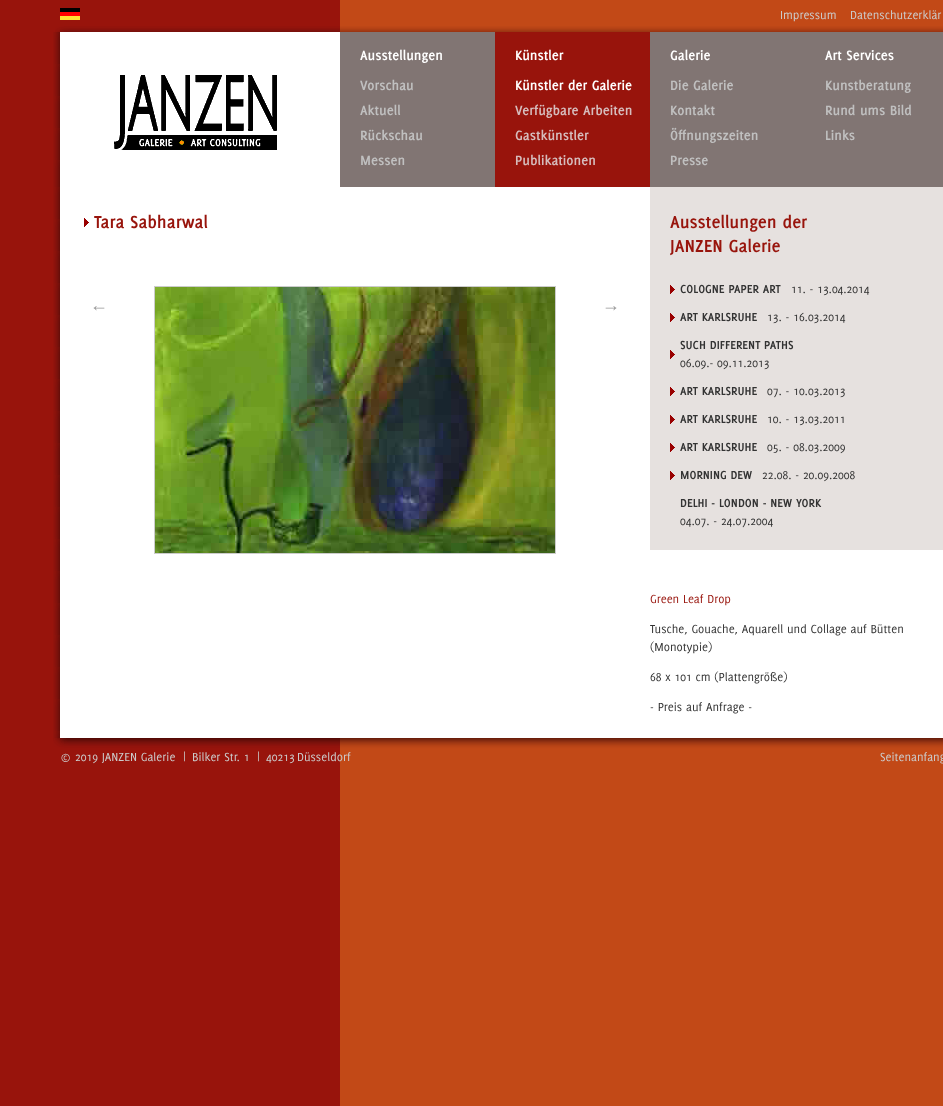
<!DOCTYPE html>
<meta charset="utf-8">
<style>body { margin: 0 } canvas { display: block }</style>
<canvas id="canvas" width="943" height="1106"></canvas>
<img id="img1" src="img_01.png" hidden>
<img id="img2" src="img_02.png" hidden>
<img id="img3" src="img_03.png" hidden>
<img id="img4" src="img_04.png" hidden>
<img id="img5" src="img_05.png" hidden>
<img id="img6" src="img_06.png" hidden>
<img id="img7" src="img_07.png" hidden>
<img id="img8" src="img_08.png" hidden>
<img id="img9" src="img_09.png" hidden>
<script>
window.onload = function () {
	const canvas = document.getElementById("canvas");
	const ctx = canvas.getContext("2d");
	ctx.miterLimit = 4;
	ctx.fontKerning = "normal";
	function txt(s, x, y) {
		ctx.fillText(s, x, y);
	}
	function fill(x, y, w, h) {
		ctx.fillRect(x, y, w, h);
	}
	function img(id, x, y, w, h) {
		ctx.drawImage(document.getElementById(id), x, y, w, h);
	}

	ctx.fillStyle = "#C24917";
	fill(0, 0, 943, 1106);
	ctx.fillStyle = "#98140C";
	fill(0, 0, 340, 1106);
	img("img1", 55, 26, 888, 6);
	img("img2", 60, 8, 20, 12);
	img("img3", 53, 32, 287, 155);
	img("img4", 114, 75, 163, 75);
	ctx.fillStyle = "#817573";
	fill(340, 32, 155, 155);
	ctx.fillStyle = "#98140C";
	fill(495, 32, 155, 155);
	ctx.fillStyle = "#817573";
	fill(650, 32, 293, 155);
	img("img5", 53, 187, 890, 551);
	img("img6", 84, 218, 5, 9);
	ctx.strokeStyle = "#CCCCCC";
	ctx.strokeRect(154.5, 286.5, 401, 267);
	img("img7", 155, 287, 400, 266);
	ctx.fillStyle = "#E6E1DF";
	fill(650, 187, 293, 363);
	img("img8", 670, 285, 5, 9);
	img("img8", 670, 313, 5, 9);
	img("img8", 670, 350, 5, 9);
	img("img8", 670, 387, 5, 9);
	img("img8", 670, 415, 5, 9);
	img("img8", 670, 443, 5, 9);
	img("img8", 670, 471, 5, 9);
	img("img9", 53, 738, 890, 40);
	ctx.font = "12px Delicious";
	ctx.fillStyle = "#CCCCCC";
	txt("Impressum", 780, 19);
	txt("Datenschutzerklär", 850, 19);
	ctx.font = "bold 14px Delicious";
	ctx.fillStyle = "#FFFFFF";
	txt("Ausstellungen", 360, 60);
	ctx.fillStyle = "#C0C0C0";
	txt("Vorschau", 360, 90);
	txt("Aktuell", 360, 115);
	txt("Rückschau", 360, 140);
	txt("Messen", 360, 165);
	ctx.fillStyle = "#FFFFFF";
	txt("Künstler", 515, 60);
	txt("Künstler der Galerie", 515, 90);
	ctx.fillStyle = "#D6BCBC";
	txt("Verfügbare Arbeiten", 515, 115);
	txt("Gastkünstler", 515, 140);
	txt("Publikationen", 515, 165);
	ctx.fillStyle = "#FFFFFF";
	txt("Galerie", 670, 60);
	ctx.fillStyle = "#C0C0C0";
	txt("Die Galerie", 670, 90);
	txt("Kontakt", 670, 115);
	txt("Öffnungszeiten", 670, 140);
	txt("Presse", 670, 165);
	ctx.fillStyle = "#FFFFFF";
	txt("Art Services", 825, 60);
	ctx.fillStyle = "#C0C0C0";
	txt("Kunstberatung", 825, 90);
	txt("Rund ums Bild", 825, 115);
	txt("Links", 825, 140);
	ctx.font = "bold 18px Delicious";
	ctx.fillStyle = "#98140C";
	txt("Tara Sabharwal", 94, 228);
	ctx.font = "18px Liberation Sans";
	ctx.fillStyle = "#999999";
	txt("←", 90, 311);
	txt("→", 602, 311);
	ctx.font = "bold 18px Delicious";
	ctx.fillStyle = "#98140C";
	txt("Ausstellungen der", 670, 228);
	txt("JANZEN Galerie", 670, 252);
	ctx.font = "bold 12px Delicious";
	ctx.fillStyle = "#333333";
	txt("COLOGNE PAPER ART", 680, 293);
	ctx.font = "12px Delicious";
	txt("11. - 13.04.2014", 791, 293);
	ctx.font = "bold 12px Delicious";
	txt("ART KARLSRUHE", 680, 321);
	ctx.font = "12px Delicious";
	txt("13. - 16.03.2014", 767, 321);
	ctx.font = "bold 12px Delicious";
	txt("SUCH DIFFERENT PATHS", 680, 349);
	ctx.font = "12px Delicious";
	txt("06.09.- 09.11.2013", 680, 367);
	ctx.font = "bold 12px Delicious";
	txt("ART KARLSRUHE", 680, 395);
	ctx.font = "12px Delicious";
	txt("07. - 10.03.2013", 767, 395);
	ctx.font = "bold 12px Delicious";
	txt("ART KARLSRUHE", 680, 423);
	ctx.font = "12px Delicious";
	txt("10. - 13.03.2011", 767, 423);
	ctx.font = "bold 12px Delicious";
	txt("ART KARLSRUHE", 680, 451);
	ctx.font = "12px Delicious";
	txt("05. - 08.03.2009", 767, 451);
	ctx.font = "bold 12px Delicious";
	txt("MORNING DEW", 680, 479);
	ctx.font = "12px Delicious";
	txt("22.08. - 20.09.2008", 762, 479);
	ctx.font = "bold 12px Delicious";
	txt("DELHI - LONDON - NEW YORK", 680, 507);
	ctx.font = "12px Delicious";
	txt("04.07. - 24.07.2004", 680, 525);
	ctx.fillStyle = "#98140C";
	txt("Green Leaf Drop", 650, 603);
	ctx.fillStyle = "#333333";
	txt("Tusche, Gouache, Aquarell und Collage auf Bütten", 650, 633);
	txt("(Monotypie)", 650, 651);
	txt("68 x 101 cm (Plattengröße)", 650, 681);
	txt("- Preis auf Anfrage -", 650, 711);
	ctx.fillStyle = "#CCCCCC";
	txt("© 2019 JANZEN Galerie  |", 60, 761);
	txt("Bilker Str. 1  |", 192, 761);
	txt("40213", 266, 761);
	txt("Düsseldorf", 297, 761);
	txt("Seitenanfang", 880, 761);
};
</script>
